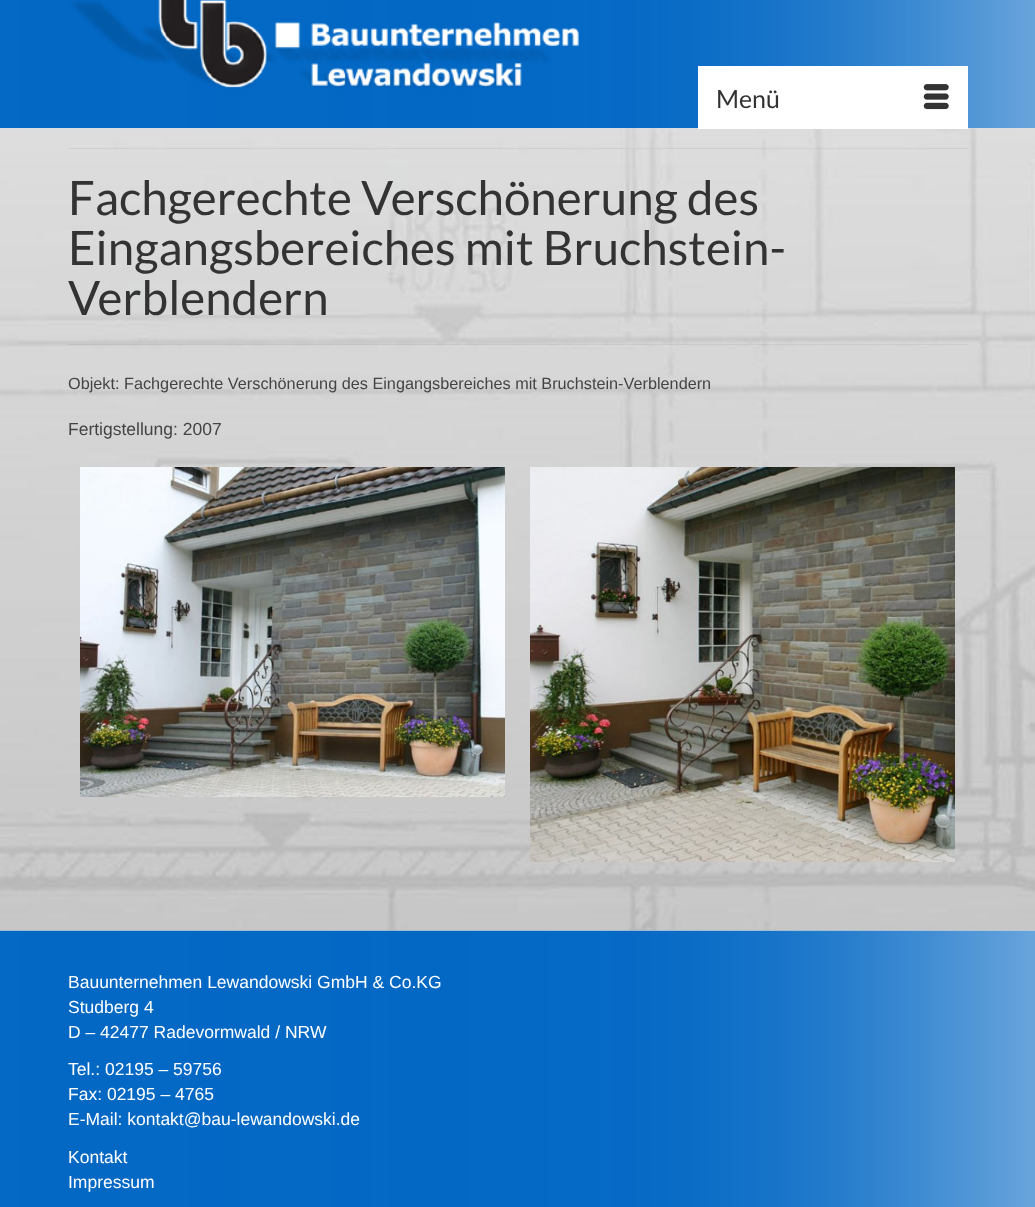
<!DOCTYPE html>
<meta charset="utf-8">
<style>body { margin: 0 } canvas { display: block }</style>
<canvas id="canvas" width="1035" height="1207"></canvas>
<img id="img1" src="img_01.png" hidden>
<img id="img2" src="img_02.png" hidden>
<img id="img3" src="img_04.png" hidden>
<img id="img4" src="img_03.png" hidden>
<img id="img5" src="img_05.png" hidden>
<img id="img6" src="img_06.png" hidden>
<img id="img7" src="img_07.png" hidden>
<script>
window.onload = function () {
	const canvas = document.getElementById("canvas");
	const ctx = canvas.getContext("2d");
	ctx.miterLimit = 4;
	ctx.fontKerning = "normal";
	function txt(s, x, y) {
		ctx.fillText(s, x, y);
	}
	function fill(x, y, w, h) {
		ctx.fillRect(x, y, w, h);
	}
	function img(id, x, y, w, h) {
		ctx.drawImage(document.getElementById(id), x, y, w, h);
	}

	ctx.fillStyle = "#FFFFFF";
	fill(0, 0, 1035, 1207);
	img("img1", 0, 0, 1035, 129);
	img("img2", 71, 0, 508, 89);
	img("img3", 0, 128, 1035, 803);
	fill(698, 66, 270, 63);
	img("img4", 923, 84, 26, 26);
	ctx.fillStyle = "rgba(0, 0, 0, 0.05)";
	fill(68, 148, 900, 1);
	fill(68, 344, 900, 1);
	img("img5", 80, 467, 425, 330);
	img("img6", 530, 467, 425, 395);
	img("img7", 0, 930, 1035, 277);
	ctx.font = "25px Lato";
	ctx.fillStyle = "#333333";
	txt("Menü", 716, 108);
	ctx.font = "47.5px Lato";
	txt("Fachgerechte Verschönerung des", 68, 215);
	txt("Eingangsbereiches mit Bruchstein-", 68, 265);
	txt("Verblendern", 68, 315);
	ctx.font = "16.25px Liberation Sans";
	ctx.fillStyle = "#444444";
	txt("Objekt: Fachgerechte Verschönerung des Eingangsbereiches mit Bruchstein-Verblendern", 68, 389);
	ctx.font = "17.5px Liberation Sans";
	txt("Fertigstellung: 2007", 68, 435);
	ctx.fillStyle = "#FFFFFF";
	txt("Bauunternehmen Lewandowski GmbH & Co.KG", 68, 988);
	txt("Studberg 4", 68, 1013);
	txt("D – 42477 Radevormwald / NRW", 68, 1038);
	txt("Tel.: 02195 – 59756", 68, 1075);
	txt("Fax: 02195 – 4765", 68, 1100);
	txt("E-Mail: kontakt@bau-lewandowski.de", 68, 1125);
	txt("Kontakt", 68, 1163);
	txt("Impressum", 68, 1188);
};
</script>
